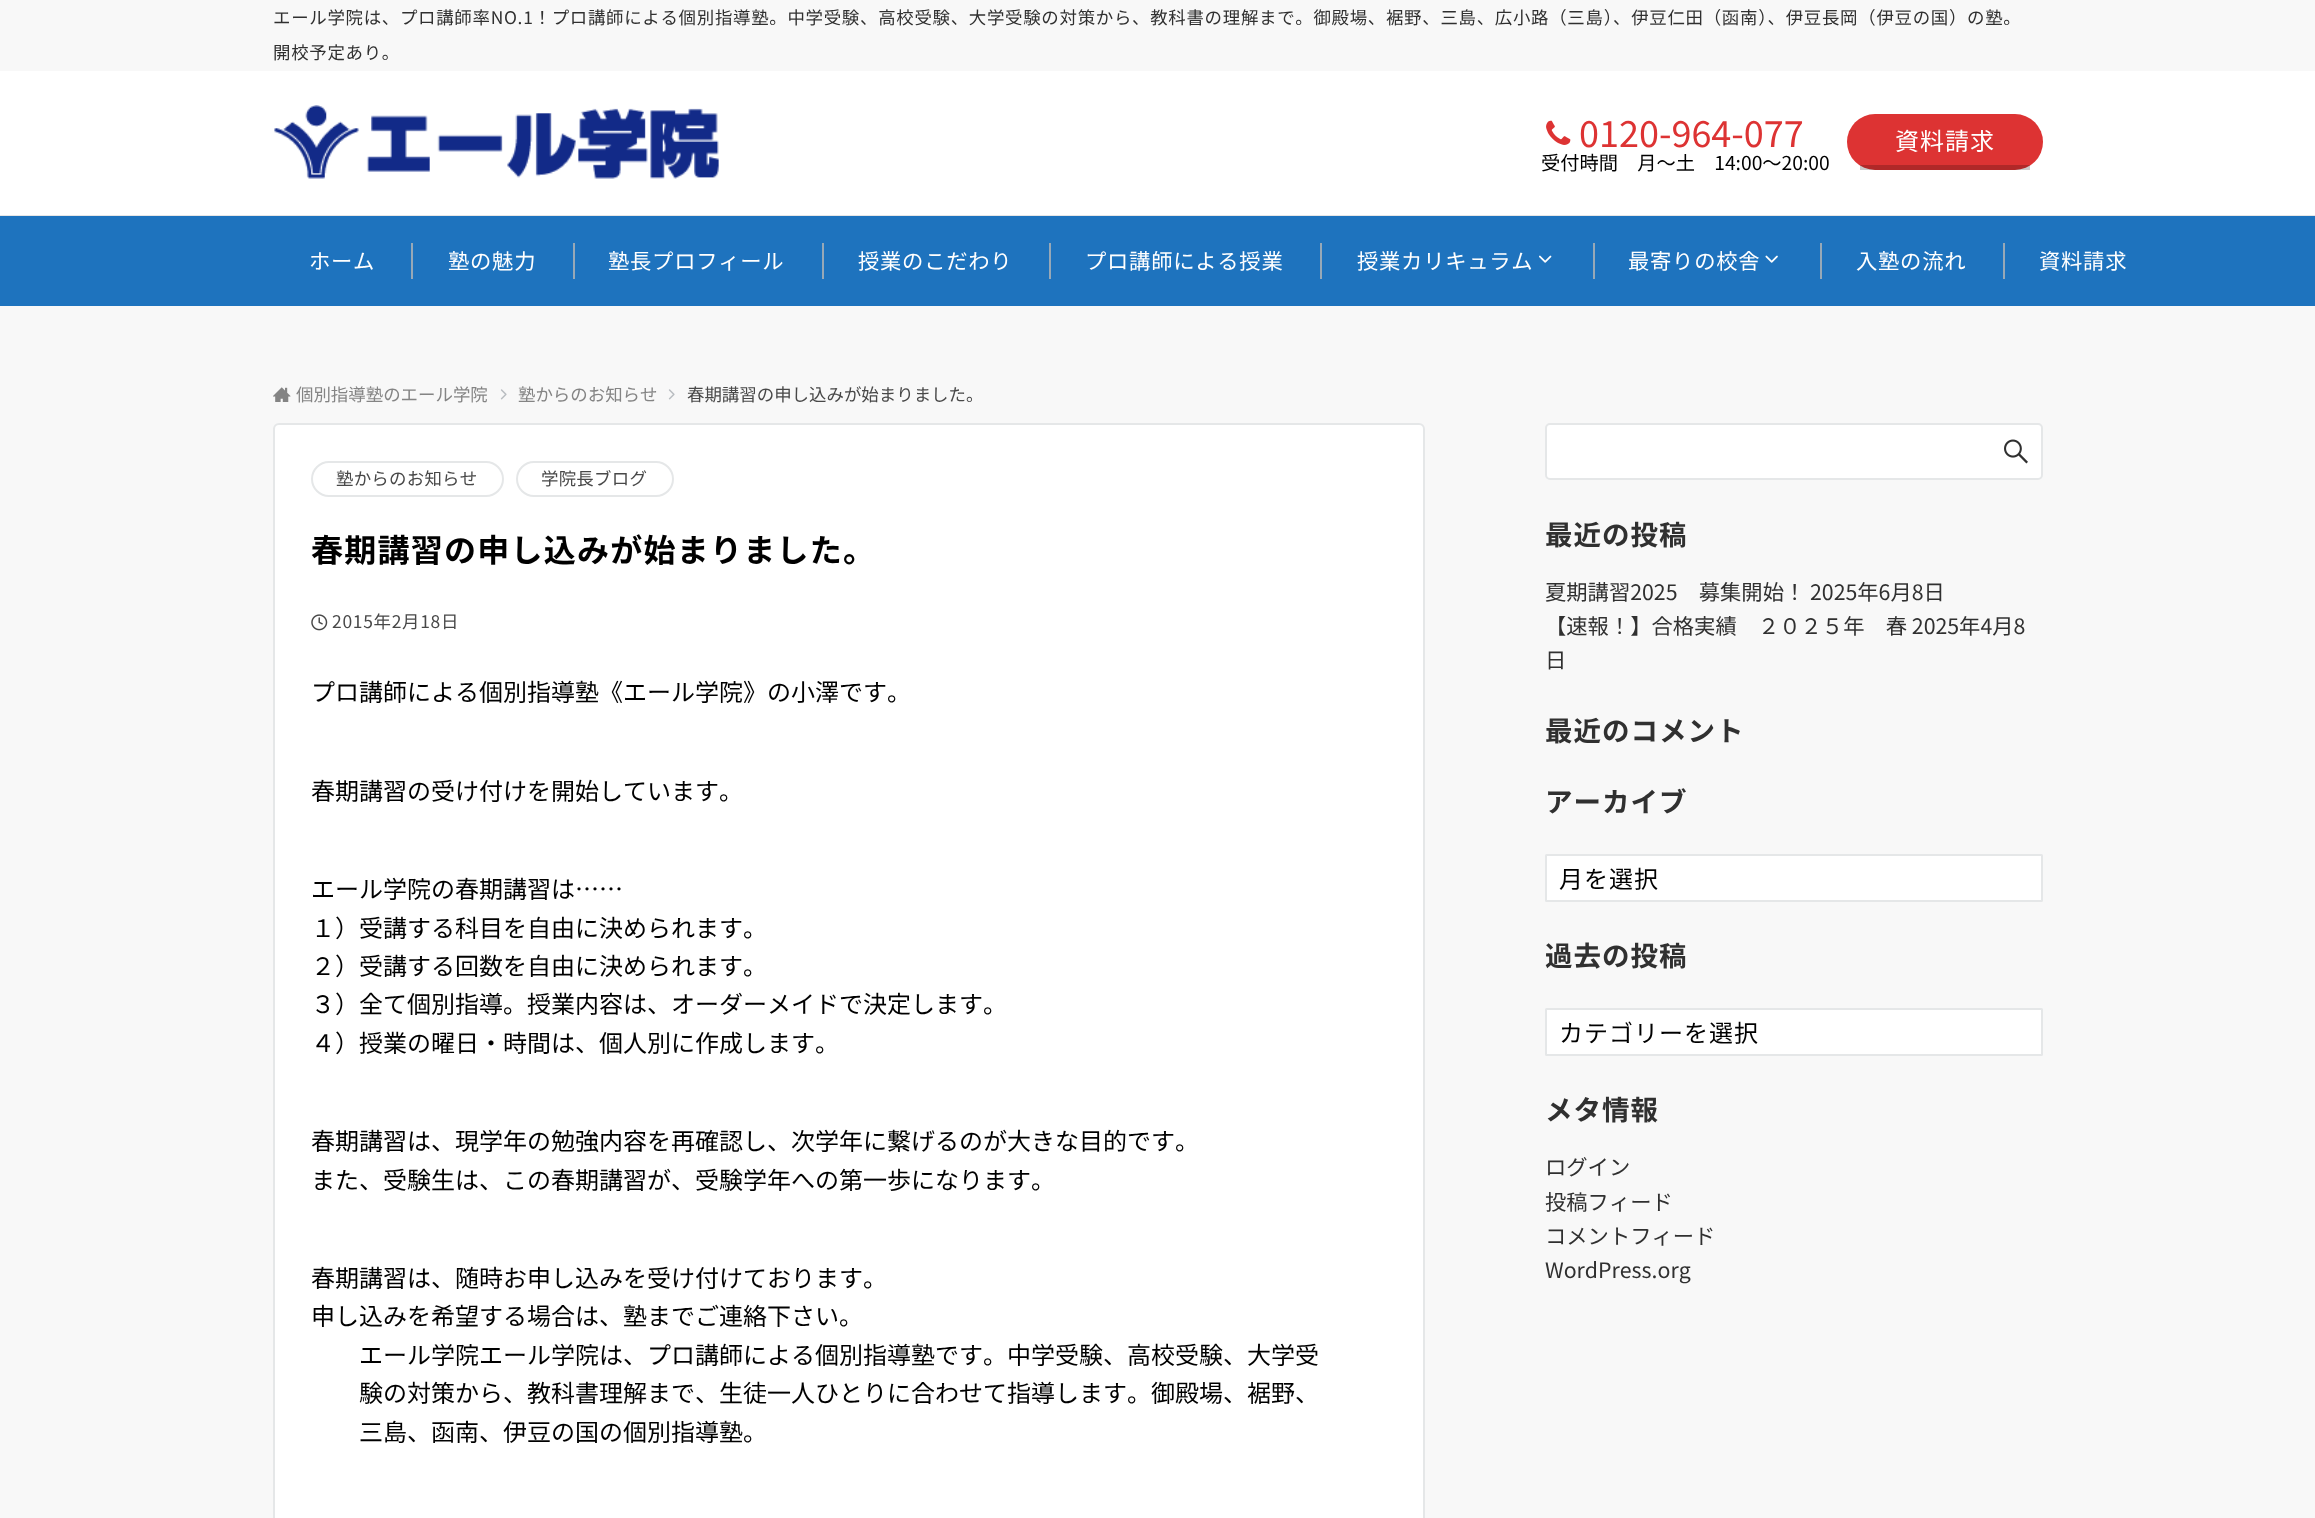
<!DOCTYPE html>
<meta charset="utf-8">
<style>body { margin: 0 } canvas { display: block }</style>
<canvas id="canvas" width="2315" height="1518"></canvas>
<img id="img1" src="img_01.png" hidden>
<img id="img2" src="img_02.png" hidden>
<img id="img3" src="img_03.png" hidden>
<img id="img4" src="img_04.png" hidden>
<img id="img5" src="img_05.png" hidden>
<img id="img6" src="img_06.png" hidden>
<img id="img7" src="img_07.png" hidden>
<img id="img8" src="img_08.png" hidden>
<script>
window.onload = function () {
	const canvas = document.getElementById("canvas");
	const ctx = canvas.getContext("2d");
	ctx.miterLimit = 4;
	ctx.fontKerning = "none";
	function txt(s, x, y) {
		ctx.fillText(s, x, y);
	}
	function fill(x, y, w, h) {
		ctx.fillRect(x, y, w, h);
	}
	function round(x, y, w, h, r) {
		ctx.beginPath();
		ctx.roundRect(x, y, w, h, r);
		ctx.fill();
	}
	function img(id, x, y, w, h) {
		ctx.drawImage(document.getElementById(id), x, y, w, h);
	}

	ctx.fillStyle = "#F8F8F8";
	fill(0, 0, 2315, 1518);
	ctx.fillStyle = "#FFFFFF";
	fill(0, 71, 2315, 144);
	ctx.fillStyle = "#E6E6E6";
	fill(0, 215, 2315, 1);
	img("img1", 274, 105, 445, 74);
	img("img2", 1546, 120, 25, 25);
	ctx.fillStyle = "#DD3333";
	round(1847, 114, 196, 56, 28);
	ctx.fillStyle = "rgba(0, 0, 0, 0.2)";
	fill(1860, 165, 170, 5);
	ctx.fillStyle = "#1E73BE";
	fill(0, 216, 2315, 90);
	ctx.fillStyle = "#97A8B7";
	fill(411, 243, 2, 36);
	fill(573, 243, 2, 36);
	fill(822, 243, 2, 36);
	fill(1049, 243, 2, 36);
	fill(1320, 243, 2, 36);
	img("img3", 1539, 255, 13, 8);
	fill(1593, 243, 2, 36);
	img("img4", 1765, 255, 13, 8);
	fill(1820, 243, 2, 36);
	fill(2003, 243, 2, 36);
	img("img5", 273, 387, 18, 15);
	img("img6", 500, 389, 7, 11);
	img("img6", 668, 389, 7, 11);
	ctx.fillStyle = "#FFFFFF";
	ctx.beginPath();
	ctx.roundRect(274, 424, 1150, 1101, 5);
	ctx.fill();
	ctx.strokeStyle = "#E5E7E8";
	ctx.lineWidth = 2;
	ctx.stroke();
	ctx.beginPath();
	ctx.roundRect(312, 462, 191, 34, 17);
	ctx.stroke();
	ctx.beginPath();
	ctx.roundRect(517, 462, 156, 34, 17);
	ctx.stroke();
	img("img7", 311, 614, 17, 17);
	ctx.beginPath();
	ctx.roundRect(1546, 424, 496, 55, 4);
	ctx.fill();
	ctx.stroke();
	img("img8", 2004, 439, 24, 25);
	ctx.beginPath();
	ctx.roundRect(1546, 855, 496, 46, 0.5);
	ctx.fill();
	ctx.stroke();
	ctx.beginPath();
	ctx.roundRect(1546, 1009, 496, 46, 0.5);
	ctx.fill();
	ctx.stroke();
	ctx.letterSpacing = "0.7px";
	ctx.font = "17.45px Noto Sans JP";
	ctx.fillStyle = "#303030";
	txt("エール学院は、プロ講師率NO.1！プロ講師による個別指導塾。中学受験、高校受験、大学受験の対策から、教科書の理解まで。御殿場、裾野、三島、広小路（三島）、伊豆仁田（函南）、伊豆長岡（伊豆の国）の塾。", 273, 24);
	txt("開校予定あり。", 273, 59);
	ctx.letterSpacing = "0px";
	ctx.font = "36px Noto Sans JP";
	ctx.fillStyle = "#DD3333";
	txt("0120-964-077", 1579, 147);
	ctx.font = "19.25px Noto Sans JP";
	ctx.fillStyle = "#000000";
	txt("受付時間　月〜土　14:00〜20:00", 1541, 170);
	ctx.letterSpacing = "1px";
	ctx.font = "24px Noto Sans JP";
	ctx.fillStyle = "#FFFFFF";
	txt("資料請求", 1895, 150);
	ctx.letterSpacing = "0.75px";
	ctx.font = "21.3px Noto Sans JP";
	txt("ホーム", 309, 269);
	txt("塾の魅力", 448, 269);
	txt("塾長プロフィール", 608, 269);
	txt("授業のこだわり", 858, 269);
	txt("プロ講師による授業", 1085, 269);
	txt("授業カリキュラム", 1357, 269);
	txt("最寄りの校舎", 1628, 269);
	txt("入塾の流れ", 1856, 269);
	txt("資料請求", 2039, 269);
	ctx.letterSpacing = "0px";
	ctx.font = "17.45px Noto Sans JP";
	ctx.fillStyle = "#848484";
	txt("個別指導塾のエール学院", 296, 401);
	txt("塾からのお知らせ", 518, 401);
	ctx.fillStyle = "#484848";
	txt("春期講習の申し込みが始まりました。", 687, 401);
	ctx.letterSpacing = "0.25px";
	txt("塾からのお知らせ", 336, 485);
	txt("学院長ブログ", 541, 485);
	ctx.letterSpacing = "1.25px";
	ctx.font = "bold 32px Noto Sans JP";
	ctx.fillStyle = "#000000";
	txt("春期講習の申し込みが始まりました。", 311, 562);
	ctx.letterSpacing = "0.7px";
	ctx.font = "17.45px Noto Sans JP";
	ctx.fillStyle = "#484848";
	txt("2015年2月18日", 332, 628);
	ctx.letterSpacing = "0px";
	ctx.font = "24px Noto Sans JP";
	ctx.fillStyle = "#000000";
	txt("プロ講師による個別指導塾《エール学院》の小澤です。", 311, 701);
	txt("春期講習の受け付けを開始しています。", 311, 800);
	txt("エール学院の春期講習は……", 311, 898);
	txt("１）受講する科目を自由に決められます。", 311, 937);
	txt("２）受講する回数を自由に決められます。", 311, 975);
	txt("３）全て個別指導。授業内容は、オーダーメイドで決定します。", 311, 1013);
	txt("４）授業の曜日・時間は、個人別に作成します。", 311, 1052);
	txt("春期講習は、現学年の勉強内容を再確認し、次学年に繋げるのが大きな目的です。", 311, 1150);
	txt("また、受験生は、この春期講習が、受験学年への第一歩になります。", 311, 1189);
	txt("春期講習は、随時お申し込みを受け付けております。", 311, 1287);
	txt("申し込みを希望する場合は、塾までご連絡下さい。", 311, 1325);
	txt("エール学院エール学院は、プロ講師による個別指導塾です。中学受験、高校受験、大学受", 359, 1364);
	txt("験の対策から、教科書理解まで、生徒一人ひとりに合わせて指導します。御殿場、裾野、", 359, 1402);
	txt("三島、函南、伊豆の国の個別指導塾。", 359, 1441);
	ctx.letterSpacing = "1px";
	ctx.font = "bold 27.5px Noto Sans JP";
	ctx.fillStyle = "#303030";
	txt("最近の投稿", 1545, 545);
	ctx.letterSpacing = "0px";
	ctx.font = "21.3px Noto Sans JP";
	txt("夏期講習2025　募集開始！ 2025年6月8日", 1545, 600);
	txt("【速報！】合格実績　２０２５年　春 2025年4月8", 1545, 634);
	txt("日", 1545, 668);
	ctx.letterSpacing = "1px";
	ctx.font = "bold 27.5px Noto Sans JP";
	txt("最近のコメント", 1545, 741);
	txt("アーカイブ", 1545, 812);
	ctx.font = "24px Noto Sans JP";
	ctx.fillStyle = "#000000";
	txt("月を選択", 1559, 888);
	ctx.font = "bold 27.5px Noto Sans JP";
	ctx.fillStyle = "#303030";
	txt("過去の投稿", 1545, 966);
	ctx.font = "24px Noto Sans JP";
	ctx.fillStyle = "#000000";
	txt("カテゴリーを選択", 1559, 1042);
	ctx.font = "bold 27.5px Noto Sans JP";
	ctx.fillStyle = "#303030";
	txt("メタ情報", 1545, 1120);
	ctx.letterSpacing = "0px";
	ctx.font = "21.3px Noto Sans JP";
	txt("ログイン", 1545, 1175);
	txt("投稿フィード", 1545, 1210);
	txt("コメントフィード", 1545, 1244);
	txt("WordPress.org", 1545, 1278);
};
</script>
